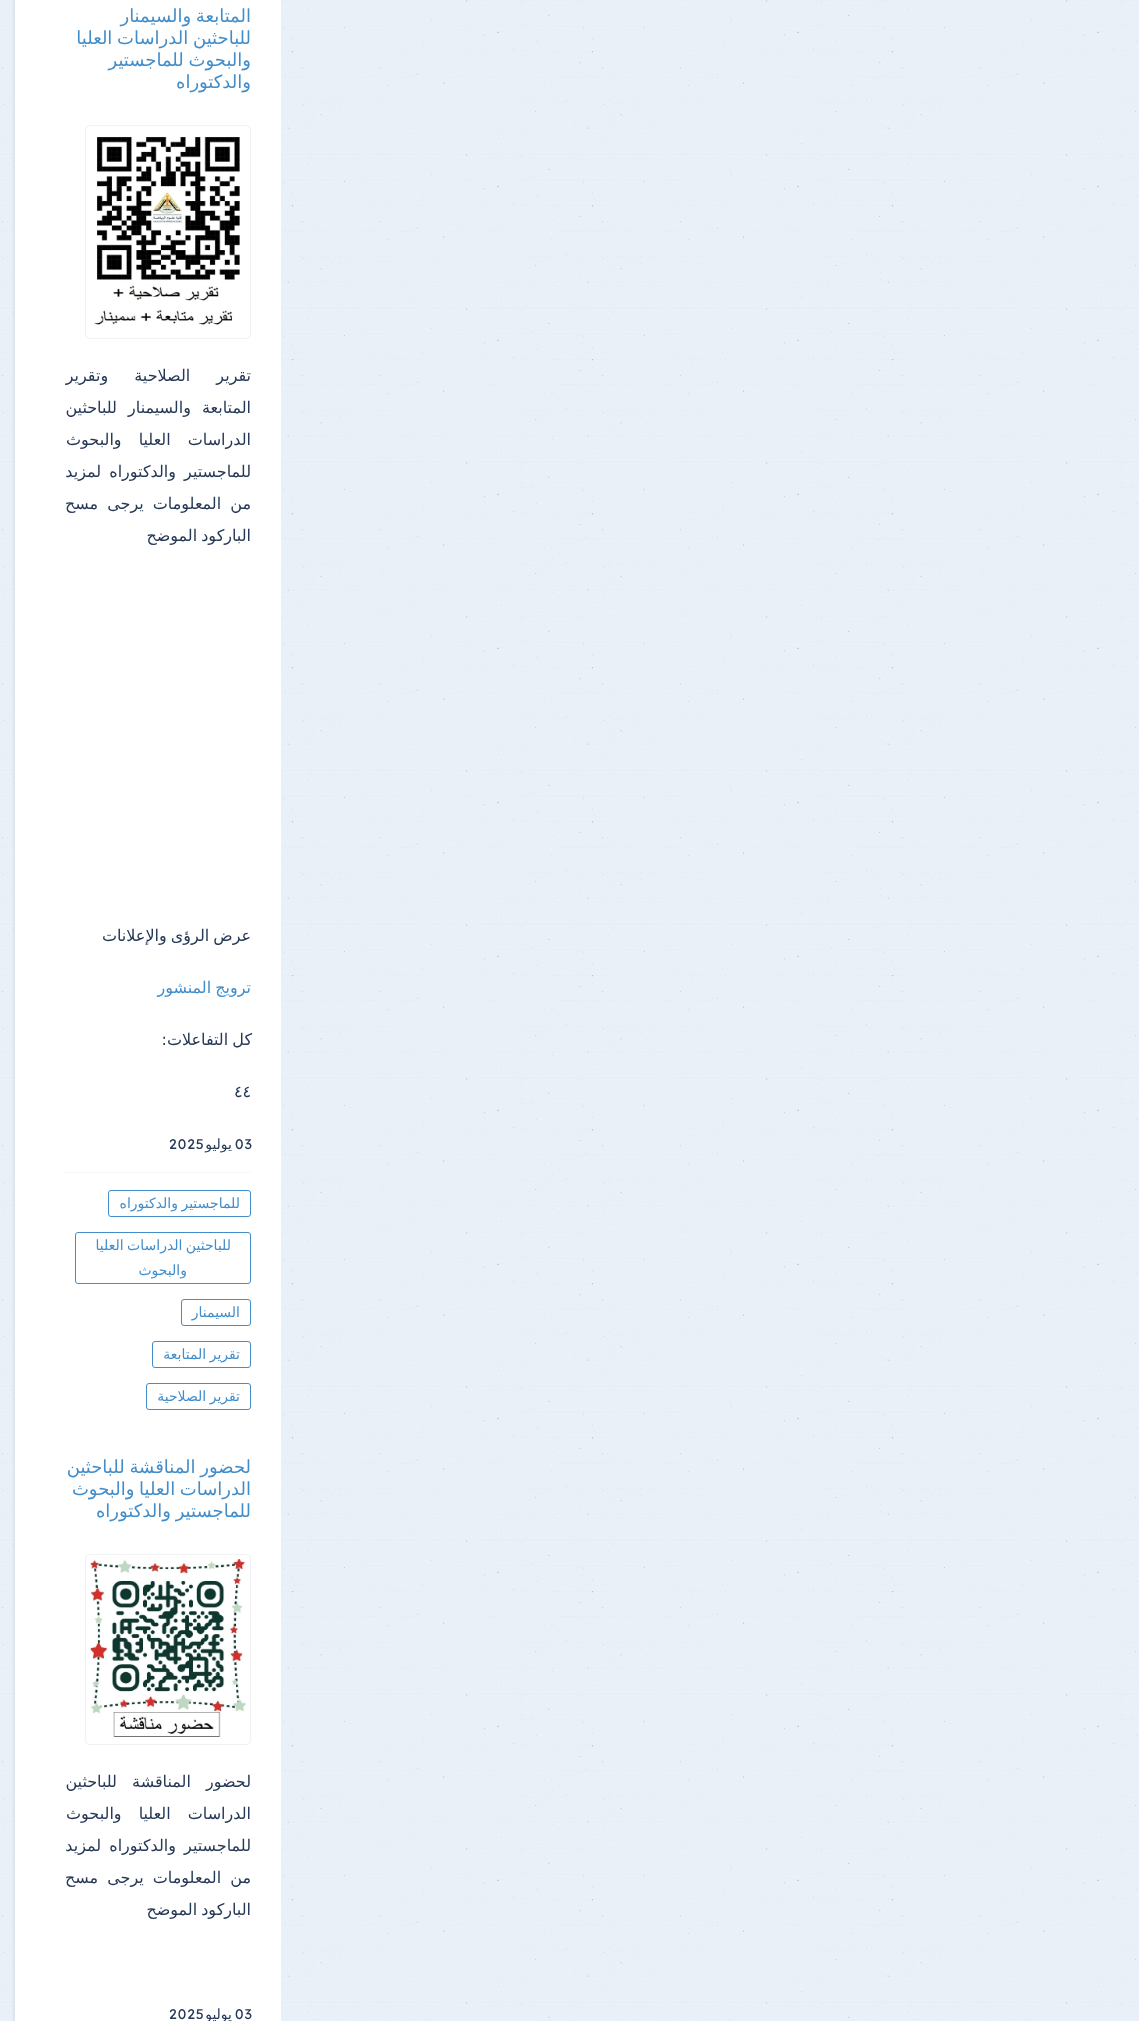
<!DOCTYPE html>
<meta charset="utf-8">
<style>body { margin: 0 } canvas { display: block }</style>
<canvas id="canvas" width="1139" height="2021"></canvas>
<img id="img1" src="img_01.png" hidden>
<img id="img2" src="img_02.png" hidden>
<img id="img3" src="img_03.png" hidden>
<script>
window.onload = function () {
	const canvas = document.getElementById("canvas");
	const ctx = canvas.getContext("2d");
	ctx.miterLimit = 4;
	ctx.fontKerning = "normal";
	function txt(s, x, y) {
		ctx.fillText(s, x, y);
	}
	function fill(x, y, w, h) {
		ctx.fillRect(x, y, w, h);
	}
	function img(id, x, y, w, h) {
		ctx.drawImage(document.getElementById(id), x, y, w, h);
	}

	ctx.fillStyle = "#E3ECF5";
	fill(0, 0, 1139, 2021);
	img("img1", 0, 0, 1139, 2021);
	ctx.fillStyle = "rgba(0, 0, 0, 0.05)";
	ctx.filter = "blur(1px)";
	ctx.beginPath();
	ctx.roundRect(13, -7, 266, 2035, 4);
	ctx.fill();
	ctx.filter = "none";
	ctx.fillStyle = "#FFFFFF";
	fill(15, 0, 266, 2021);
	ctx.beginPath();
	ctx.roundRect(85.5, 125.5, 165, 213, 3.5);
	ctx.strokeStyle = "#F2F2F2";
	ctx.stroke();
	img("img2", 94, 136, 146, 189);
	ctx.beginPath();
	ctx.moveTo(65, 1172.5);
	ctx.lineTo(251, 1172.5);
	ctx.strokeStyle = "#ECECEC";
	ctx.setLineDash([1, 1]);
	ctx.stroke();
	ctx.beginPath();
	ctx.roundRect(108.5, 1190.5, 142, 26, 2.5);
	ctx.strokeStyle = "#428DC9";
	ctx.setLineDash([]);
	ctx.stroke();
	ctx.beginPath();
	ctx.roundRect(75.5, 1232.5, 175, 51, 2.5);
	ctx.stroke();
	ctx.beginPath();
	ctx.roundRect(181.5, 1299.5, 69, 26, 2.5);
	ctx.stroke();
	ctx.beginPath();
	ctx.roundRect(152.5, 1341.5, 98, 26, 2.5);
	ctx.stroke();
	ctx.beginPath();
	ctx.roundRect(146.5, 1383.5, 104, 26, 2.5);
	ctx.stroke();
	ctx.beginPath();
	ctx.roundRect(85.5, 1554.5, 165, 190, 3.5);
	ctx.strokeStyle = "#F2F2F2";
	ctx.stroke();
	img("img3", 90, 1559, 156, 178);
	ctx.wordSpacing = "-1px";
	ctx.direction = "rtl";
	ctx.font = "18px DejaVu Sans";
	ctx.fillStyle = "#428DC9";
	txt("المتابعة والسيمنار", 251, 22);
	txt("للباحثين الدراسات العليا", 251, 44);
	txt("والبحوث للماجستير", 251, 66);
	ctx.wordSpacing = "0px";
	txt("والدكتوراه", 251, 88);
	ctx.wordSpacing = "21px";
	ctx.font = "16px DejaVu Sans";
	ctx.fillStyle = "#253856";
	txt("تقرير الصلاحية وتقرير", 251, 381);
	ctx.wordSpacing = "6px";
	txt("المتابعة والسيمنار للباحثين", 251, 413);
	ctx.wordSpacing = "12px";
	txt("الدراسات العليا والبحوث", 251, 445);
	ctx.wordSpacing = "3px";
	txt("للماجستير والدكتوراه لمزيد", 251, 477);
	ctx.wordSpacing = "4px";
	txt("من المعلومات يرجى مسح", 251, 509);
	ctx.wordSpacing = "-1px";
	txt("الباركود الموضح", 251, 541);
	txt("عرض الرؤى والإعلانات", 251, 941);
	ctx.fillStyle = "#428DC9";
	txt("ترويج المنشور", 251, 993);
	ctx.fillStyle = "#253856";
	txt("كل التفاعلات:", 252, 1045);
	ctx.wordSpacing = "0px";
	ctx.direction = "ltr";
	txt("٤٤", 234, 1097);
	ctx.letterSpacing = "1px";
	ctx.font = "14px Lexend Deca";
	txt("03", 235, 1149);
	txt("2025", 169, 1149);
	ctx.direction = "rtl";
	ctx.font = "14px DejaVu Sans";
	txt("يوليو", 232, 1149);
	ctx.letterSpacing = "0px";
	ctx.wordSpacing = "-1px";
	ctx.fillStyle = "#428DC9";
	txt("للماجستير والدكتوراه", 240, 1208);
	txt("للباحثين الدراسات العليا", 231, 1250);
	ctx.wordSpacing = "0px";
	txt("والبحوث", 187, 1275);
	txt("السيمنار", 240, 1317);
	ctx.wordSpacing = "-1px";
	txt("تقرير المتابعة", 240, 1359);
	txt("تقرير الصلاحية", 240, 1401);
	ctx.font = "18px DejaVu Sans";
	txt("لحضور المناقشة للباحثين", 251, 1473);
	txt("الدراسات العليا والبحوث", 251, 1495);
	txt("للماجستير والدكتوراه", 251, 1517);
	ctx.wordSpacing = "10px";
	ctx.font = "16px DejaVu Sans";
	ctx.fillStyle = "#253856";
	txt("لحضور المناقشة للباحثين", 251, 1787);
	ctx.wordSpacing = "12px";
	txt("الدراسات العليا والبحوث", 251, 1819);
	ctx.wordSpacing = "3px";
	txt("للماجستير والدكتوراه لمزيد", 251, 1851);
	ctx.wordSpacing = "4px";
	txt("من المعلومات يرجى مسح", 251, 1883);
	ctx.wordSpacing = "-1px";
	txt("الباركود الموضح", 251, 1915);
	ctx.letterSpacing = "1px";
	ctx.wordSpacing = "0px";
	ctx.direction = "ltr";
	ctx.font = "14px Lexend Deca";
	txt("03", 235, 2019);
	txt("2025", 169, 2019);
	ctx.direction = "rtl";
	ctx.font = "14px DejaVu Sans";
	txt("يوليو", 232, 2019);
};
</script>
